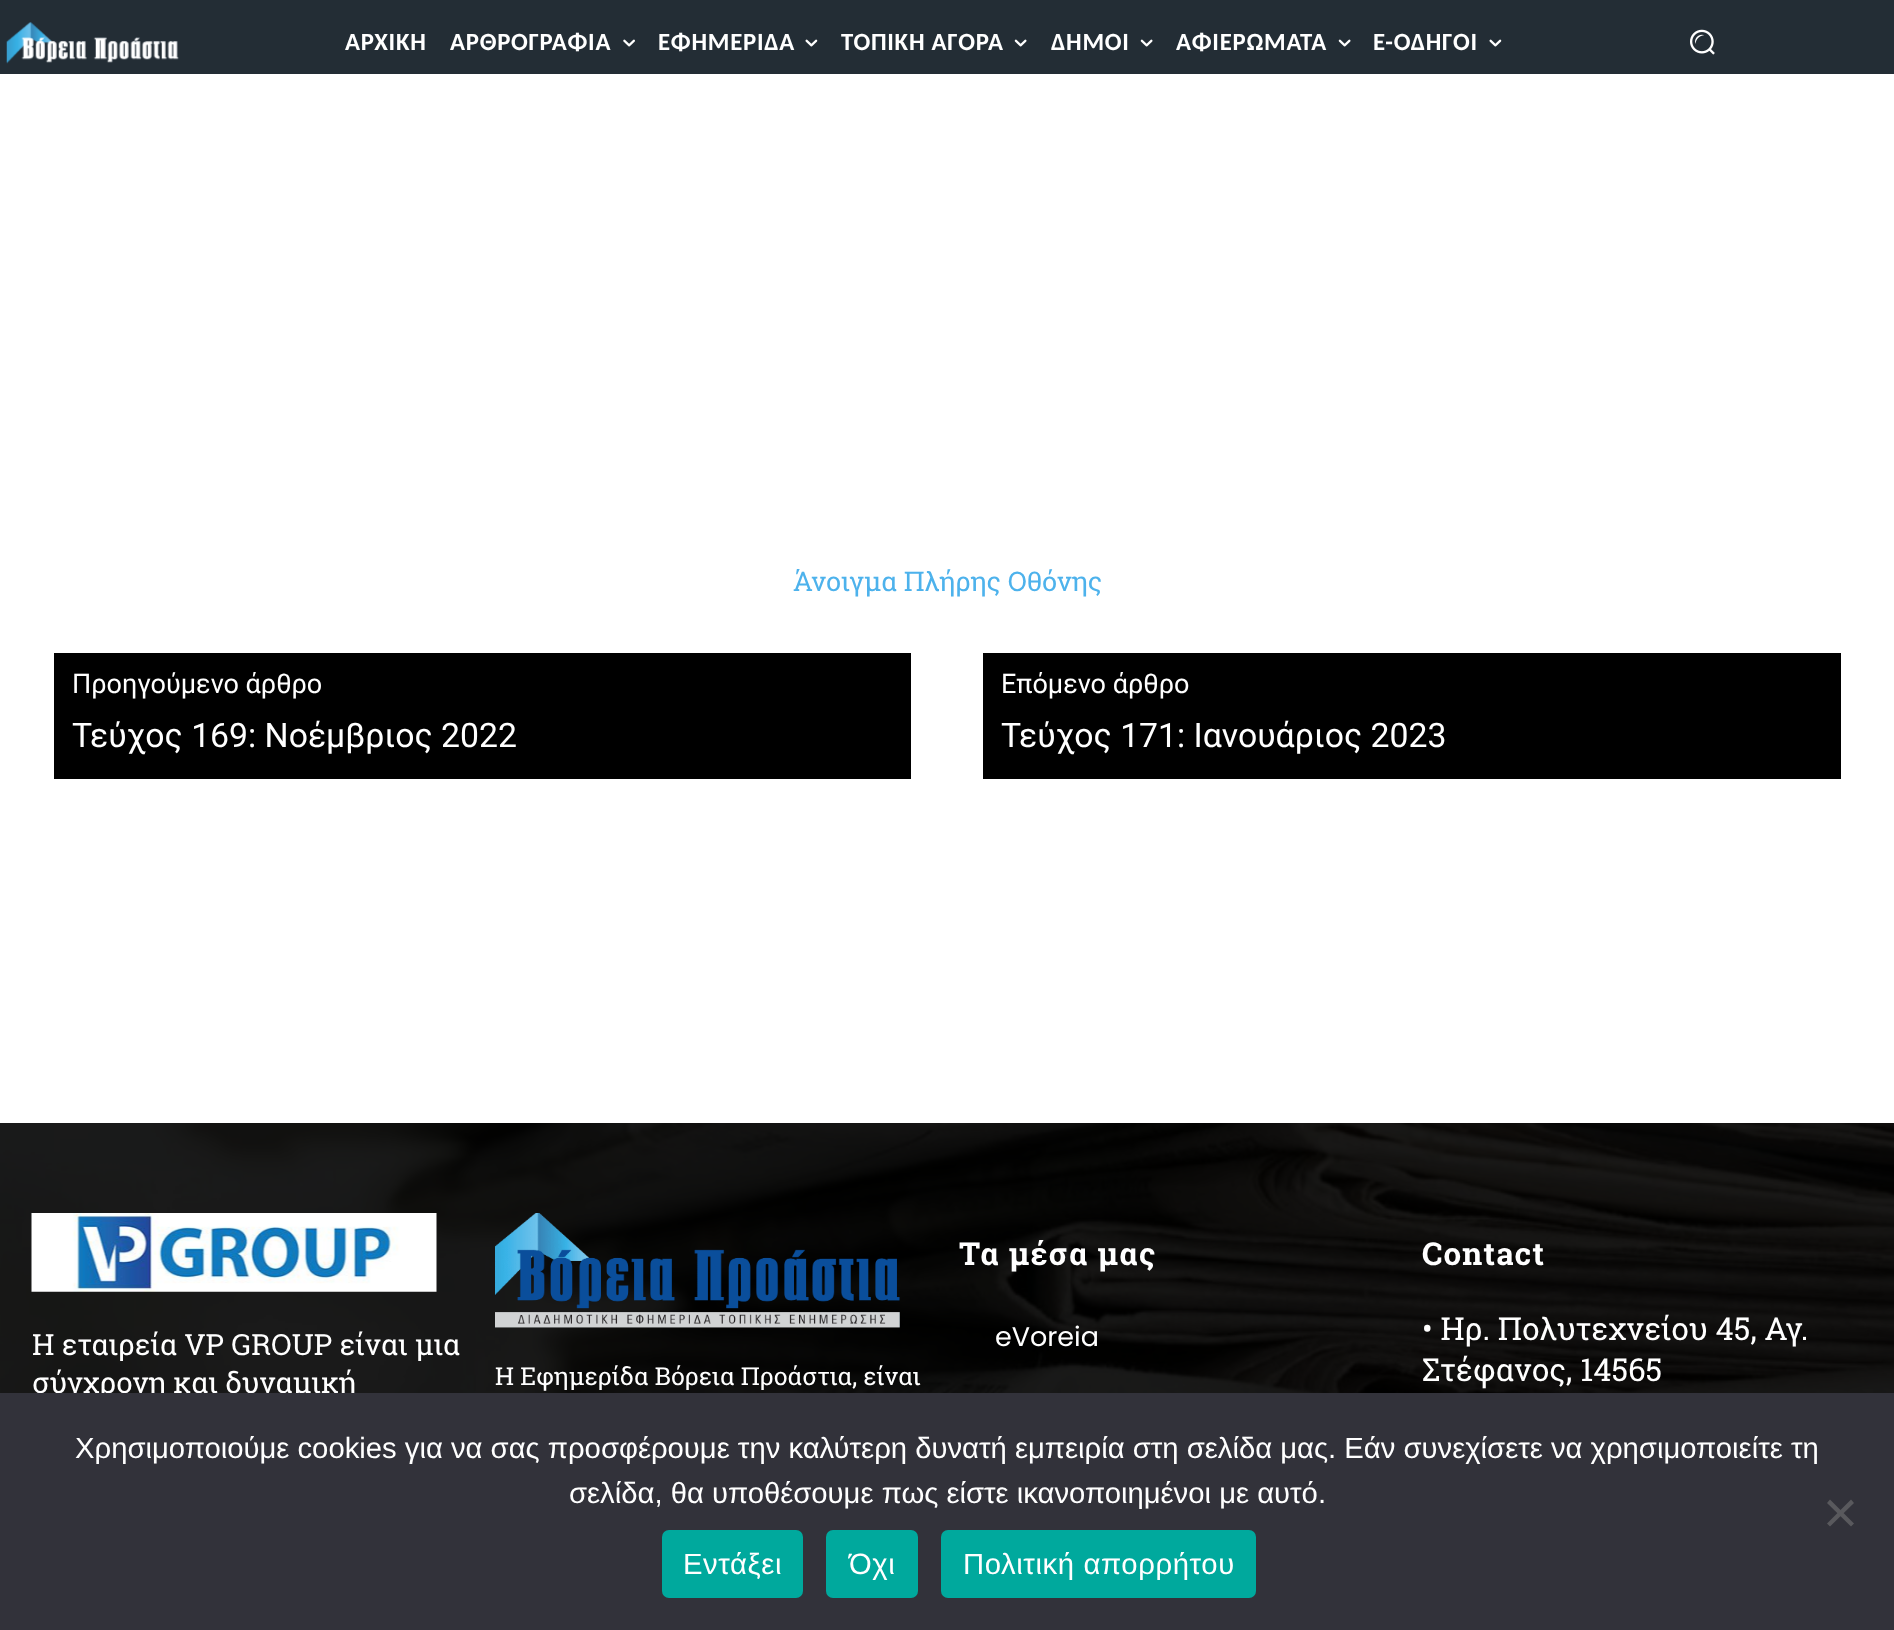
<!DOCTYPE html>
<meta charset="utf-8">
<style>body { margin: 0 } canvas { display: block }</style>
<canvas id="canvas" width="1894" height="1630"></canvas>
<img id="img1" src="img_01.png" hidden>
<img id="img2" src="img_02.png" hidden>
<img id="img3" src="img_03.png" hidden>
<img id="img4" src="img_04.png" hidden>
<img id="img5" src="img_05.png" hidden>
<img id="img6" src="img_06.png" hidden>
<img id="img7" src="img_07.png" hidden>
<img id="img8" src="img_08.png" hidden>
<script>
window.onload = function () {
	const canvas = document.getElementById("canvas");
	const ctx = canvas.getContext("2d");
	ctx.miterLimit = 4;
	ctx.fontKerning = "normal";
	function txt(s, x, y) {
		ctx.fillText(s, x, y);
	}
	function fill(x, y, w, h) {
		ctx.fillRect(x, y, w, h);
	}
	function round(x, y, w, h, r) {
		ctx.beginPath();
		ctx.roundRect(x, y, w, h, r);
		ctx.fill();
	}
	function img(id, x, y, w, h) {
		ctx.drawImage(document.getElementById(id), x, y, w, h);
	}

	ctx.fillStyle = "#FFFFFF";
	fill(0, 0, 1894, 1630);
	ctx.fillStyle = "#232D35";
	fill(0, 0, 1894, 74);
	img("img1", 6, 22, 173, 42);
	img("img2", 623, 39, 12, 8);
	img("img3", 805, 39, 13, 8);
	img("img4", 1014, 39, 13, 8);
	img("img4", 1140, 39, 13, 8);
	img("img4", 1338, 39, 13, 8);
	img("img3", 1489, 39, 13, 8);
	img("img5", 1690, 29, 25, 26);
	ctx.fillStyle = "#000000";
	fill(54, 653, 857, 126);
	fill(983, 653, 858, 126);
	fill(0, 1123, 1894, 270);
	img("img6", 0, 1123, 1894, 270);
	img("img7", 31, 1213, 406, 79);
	img("img8", 495, 1213, 405, 115);
	ctx.letterSpacing = "0.75px";
	ctx.font = "bold 24.75px Carlito";
	ctx.fillStyle = "#FFFFFF";
	txt("ΑΡΧΙΚΗ", 345, 50);
	txt("ΑΡΘΡΟΓΡΑΦΙΑ", 450, 50);
	txt("ΕΦΗΜΕΡΙΔΑ", 658, 50);
	txt("ΤΟΠΙΚΗ ΑΓΟΡΑ", 841, 50);
	txt("ΔΗΜΟΙ", 1051, 50);
	txt("ΑΦΙΕΡΩΜΑΤΑ", 1176, 50);
	txt("E-ΟΔΗΓΟΙ", 1373, 50);
	ctx.letterSpacing = "0px";
	ctx.font = "27px Roboto Slab";
	ctx.fillStyle = "#4DB2EC";
	txt("Άνοιγμα Πλήρης Οθόνης", 793, 591);
	ctx.font = "27px Roboto";
	ctx.fillStyle = "#FFFFFF";
	txt("Προηγούμενο άρθρο", 72, 693);
	ctx.font = "33.75px Roboto";
	txt("Τεύχος 169: Νοέμβριος 2022", 72, 747);
	ctx.font = "27px Roboto";
	txt("Επόμενο άρθρο", 1001, 693);
	ctx.font = "33.75px Roboto";
	txt("Τεύχος 171: Ιανουάριος 2023", 1001, 747);
	ctx.font = "29.25px Roboto Slab";
	txt("H εταιρεία VP GROUP είναι μια", 32, 1355);
	txt("σύγχρονη και δυναμική", 32, 1393);
	ctx.font = "24.75px Roboto Slab";
	txt("Η Εφημερίδα Βόρεια Προάστια, είναι", 495, 1385);
	ctx.letterSpacing = "1.1px";
	ctx.font = "bold 31.5px Roboto Slab";
	txt("Τα μέσα μας", 959, 1265);
	ctx.letterSpacing = "0px";
	ctx.font = "27px Poppins";
	txt("eVoreia", 995, 1346);
	ctx.letterSpacing = "1.1px";
	ctx.font = "bold 31.5px Roboto Slab";
	txt("Contact", 1422, 1265);
	ctx.letterSpacing = "0px";
	ctx.font = "31.5px Roboto Slab";
	txt("• Ηρ. Πολυτεχνείου 45, Αγ.", 1422, 1340);
	txt("Στέφανος, 14565", 1422, 1381);
	ctx.fillStyle = "#32323A";
	fill(0, 1393, 1894, 237);
	ctx.font = "29.25px Liberation Sans";
	ctx.fillStyle = "#FFFFFF";
	txt("Χρησιμοποιούμε cookies για να σας προσφέρουμε την καλύτερη δυνατή εμπειρία στη σελίδα μας. Εάν συνεχίσετε να χρησιμοποιείτε τη", 75, 1458);
	txt("σελίδα, θα υποθέσουμε πως είστε ικανοποιημένοι με αυτό.", 569, 1503);
	ctx.fillStyle = "#59595D";
	ctx.beginPath();
	ctx.moveTo(1851, 1499.5);
	ctx.lineTo(1854, 1503);
	ctx.lineTo(1830, 1526.5);
	ctx.lineTo(1827, 1523.5);
	ctx.closePath();
	ctx.fill();
	ctx.beginPath();
	ctx.moveTo(1827, 1503);
	ctx.lineTo(1830, 1499.5);
	ctx.lineTo(1854, 1523.5);
	ctx.lineTo(1851, 1526.5);
	ctx.closePath();
	ctx.fill();
	ctx.fillStyle = "#00A99D";
	round(662, 1530, 141, 68, 7);
	ctx.letterSpacing = "0.6px";
	ctx.fillStyle = "#FFFFFF";
	txt("Εντάξει", 683, 1574);
	ctx.fillStyle = "#00A99D";
	round(826, 1530, 92, 68, 7);
	ctx.fillStyle = "#FFFFFF";
	txt("Όχι", 849, 1574);
	ctx.fillStyle = "#00A99D";
	round(941, 1530, 315, 68, 7);
	ctx.fillStyle = "#FFFFFF";
	txt("Πολιτική απορρήτου", 963, 1574);
};
</script>
